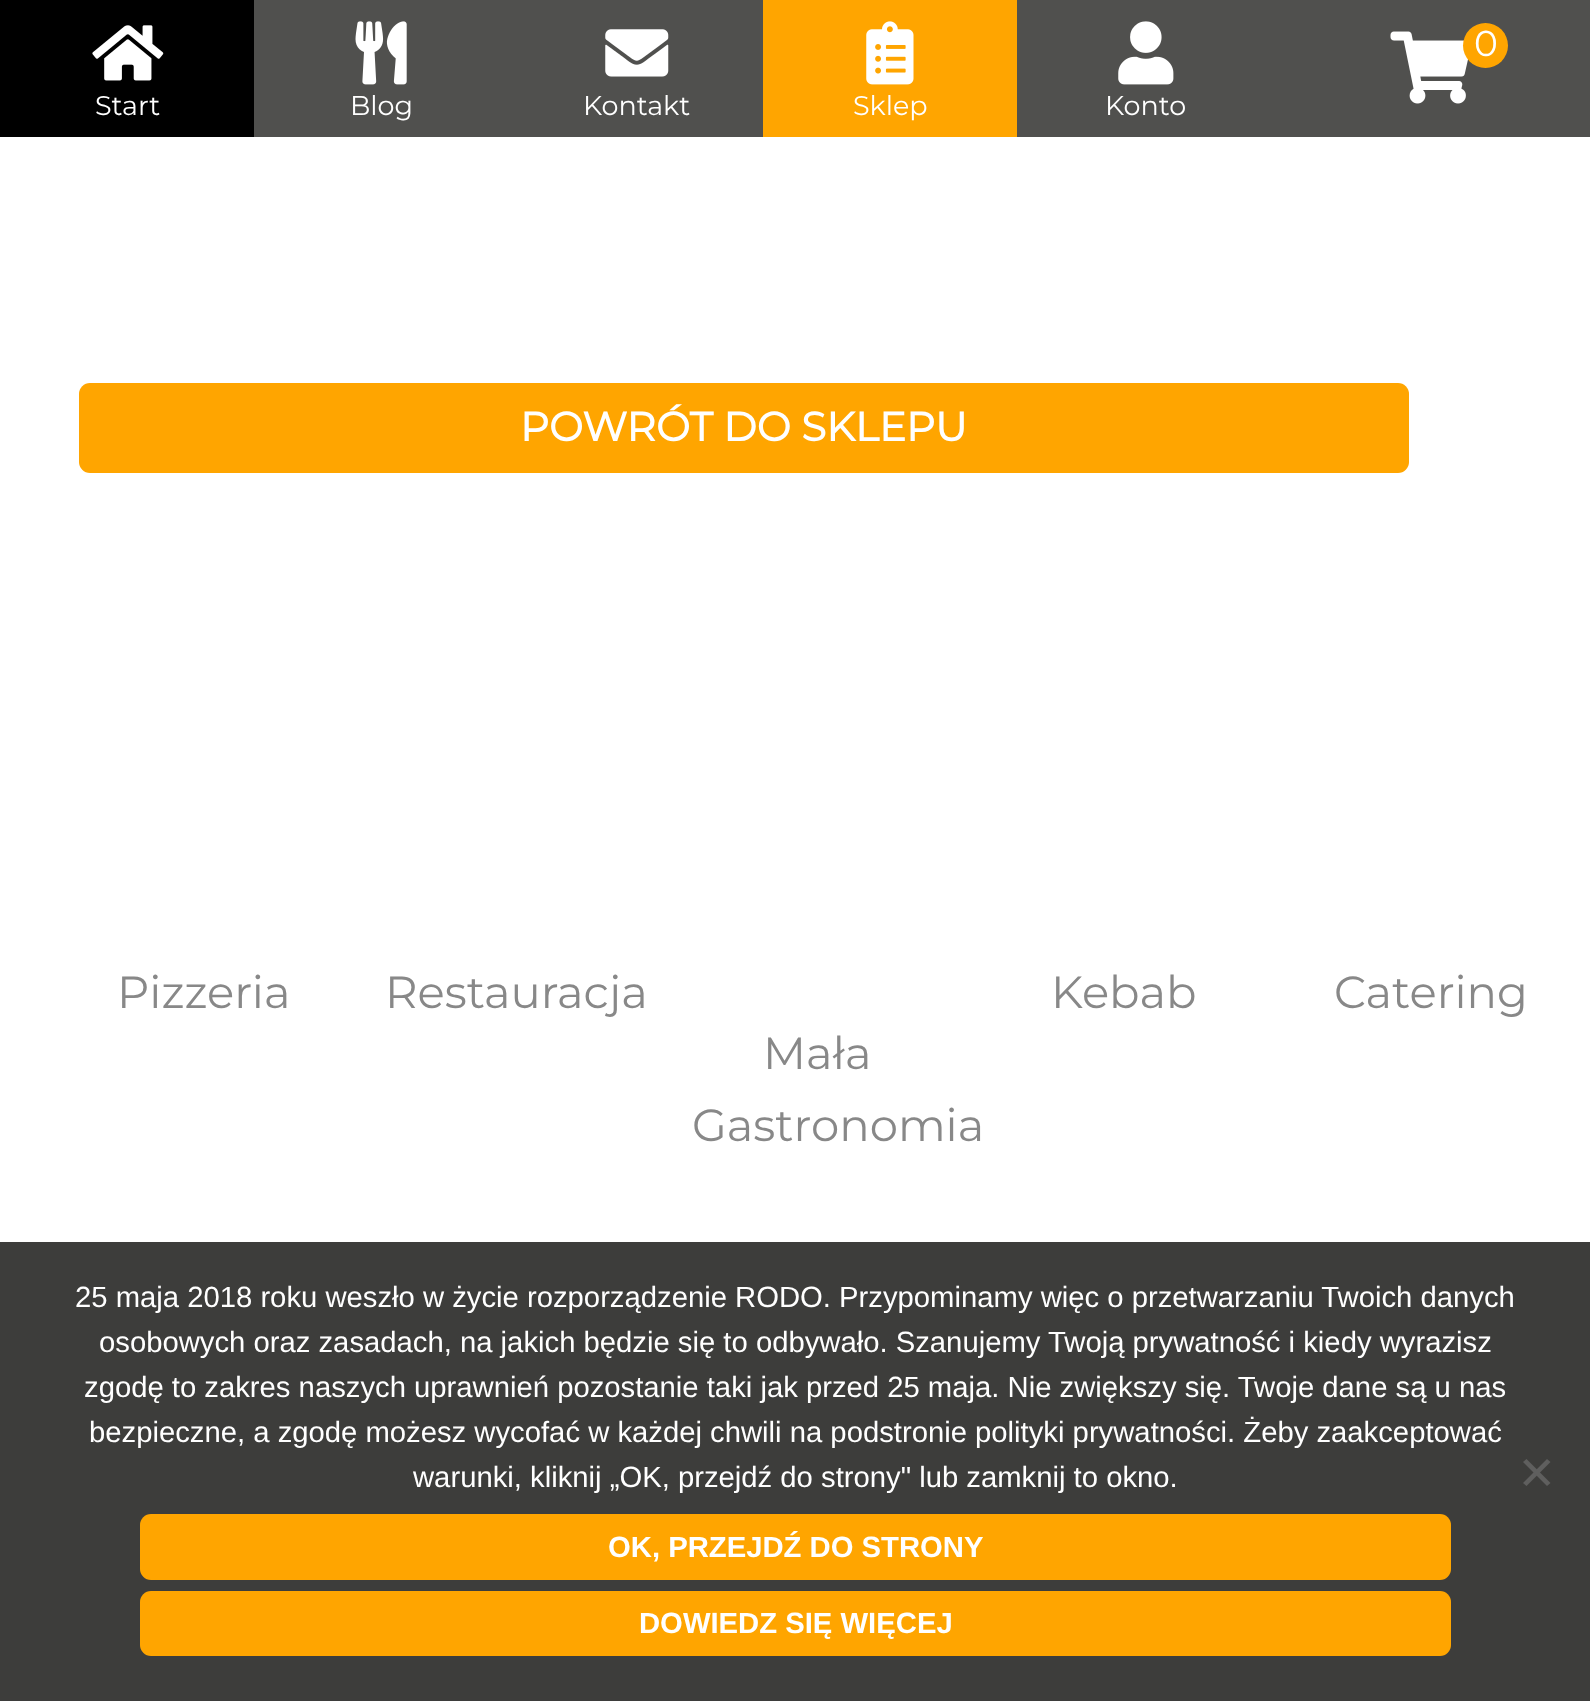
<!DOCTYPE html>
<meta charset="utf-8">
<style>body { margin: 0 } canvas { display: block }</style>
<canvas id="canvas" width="1590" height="1701"></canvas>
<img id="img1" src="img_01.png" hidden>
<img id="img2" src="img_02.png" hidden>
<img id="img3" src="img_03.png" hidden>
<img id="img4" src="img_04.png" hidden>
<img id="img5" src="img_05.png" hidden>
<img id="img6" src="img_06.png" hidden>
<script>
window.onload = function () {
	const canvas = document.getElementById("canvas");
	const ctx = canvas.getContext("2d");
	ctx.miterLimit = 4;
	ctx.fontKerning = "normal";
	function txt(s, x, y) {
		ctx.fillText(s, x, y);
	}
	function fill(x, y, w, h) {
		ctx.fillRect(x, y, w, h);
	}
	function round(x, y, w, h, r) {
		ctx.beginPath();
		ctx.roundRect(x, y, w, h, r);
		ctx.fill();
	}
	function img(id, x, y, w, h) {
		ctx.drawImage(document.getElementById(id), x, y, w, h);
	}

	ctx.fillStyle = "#FFFFFF";
	fill(0, 0, 1590, 1701);
	ctx.fillStyle = "#50504E";
	fill(254, 0, 1336, 137);
	img("img1", 1390, 31, 79, 73);
	ctx.fillStyle = "#FFA500";
	ctx.beginPath();
	ctx.arc(1485.5, 45.5, 22.5, 0, Math.PI * 2);
	ctx.fill();
	ctx.fillStyle = "#000000";
	fill(0, 0, 254, 137);
	img("img2", 92, 25, 72, 56);
	img("img3", 355, 21, 52, 64);
	img("img4", 605, 29, 64, 48);
	ctx.fillStyle = "#FFA500";
	fill(763, 0, 254, 137);
	img("img5", 866, 21, 48, 64);
	img("img6", 1118, 21, 56, 64);
	round(79, 383, 1330, 90, 11);
	ctx.fillStyle = "#3D3D3B";
	fill(0, 1242, 1590, 459);
	ctx.fillStyle = "#5F5F5E";
	ctx.beginPath();
	ctx.moveTo(1547, 1459);
	ctx.lineTo(1550.5, 1462);
	ctx.lineTo(1526.5, 1486);
	ctx.lineTo(1523, 1483);
	ctx.closePath();
	ctx.fill();
	ctx.beginPath();
	ctx.moveTo(1523, 1462);
	ctx.lineTo(1526.5, 1459);
	ctx.lineTo(1550.5, 1483);
	ctx.lineTo(1547, 1486);
	ctx.closePath();
	ctx.fill();
	ctx.fillStyle = "#FFA500";
	round(140, 1514, 1311, 66, 11);
	round(140, 1591, 1311, 65, 11);
	ctx.font = "100 36px Montserrat";
	ctx.fillStyle = "#FFFFFF";
	txt("0", 1474, 56);
	ctx.font = "100 27px Montserrat";
	txt("Start", 95, 115);
	txt("Blog", 350, 115);
	txt("Kontakt", 583, 115);
	txt("Sklep", 853, 115);
	txt("Konto", 1105, 115);
	ctx.font = "bold 40.5px Montserrat";
	txt("POWRÓT DO SKLEPU", 520, 441);
	ctx.font = "100 45px Montserrat";
	ctx.fillStyle = "#888888";
	txt("Pizzeria", 117, 1008);
	txt("Restauracja", 385, 1008);
	txt("Kebab", 1051, 1008);
	txt("Catering", 1334, 1008);
	txt("Mała", 763, 1069);
	txt("Gastronomia", 692, 1141);
	ctx.font = "29.25px Liberation Sans";
	ctx.fillStyle = "#FFFFFF";
	txt("25 maja 2018 roku weszło w życie rozporządzenie RODO. Przypominamy więc o przetwarzaniu Twoich danych", 75, 1307);
	txt("osobowych oraz zasadach, na jakich będzie się to odbywało. Szanujemy Twoją prywatność i kiedy wyrazisz", 99, 1352);
	txt("zgodę to zakres naszych uprawnień pozostanie taki jak przed 25 maja. Nie zwiększy się. Twoje dane są u nas", 84, 1397);
	txt("bezpieczne, a zgodę możesz wycofać w każdej chwili na podstronie polityki prywatności. Żeby zaakceptować", 89, 1442);
	txt("warunki, kliknij „OK, przejdź do strony\" lub zamknij to okno.", 413, 1487);
	ctx.font = "bold 29.25px Liberation Sans";
	txt("OK, PRZEJDŹ DO STRONY", 608, 1557);
	txt("DOWIEDZ SIĘ WIĘCEJ", 639, 1633);
};
</script>
